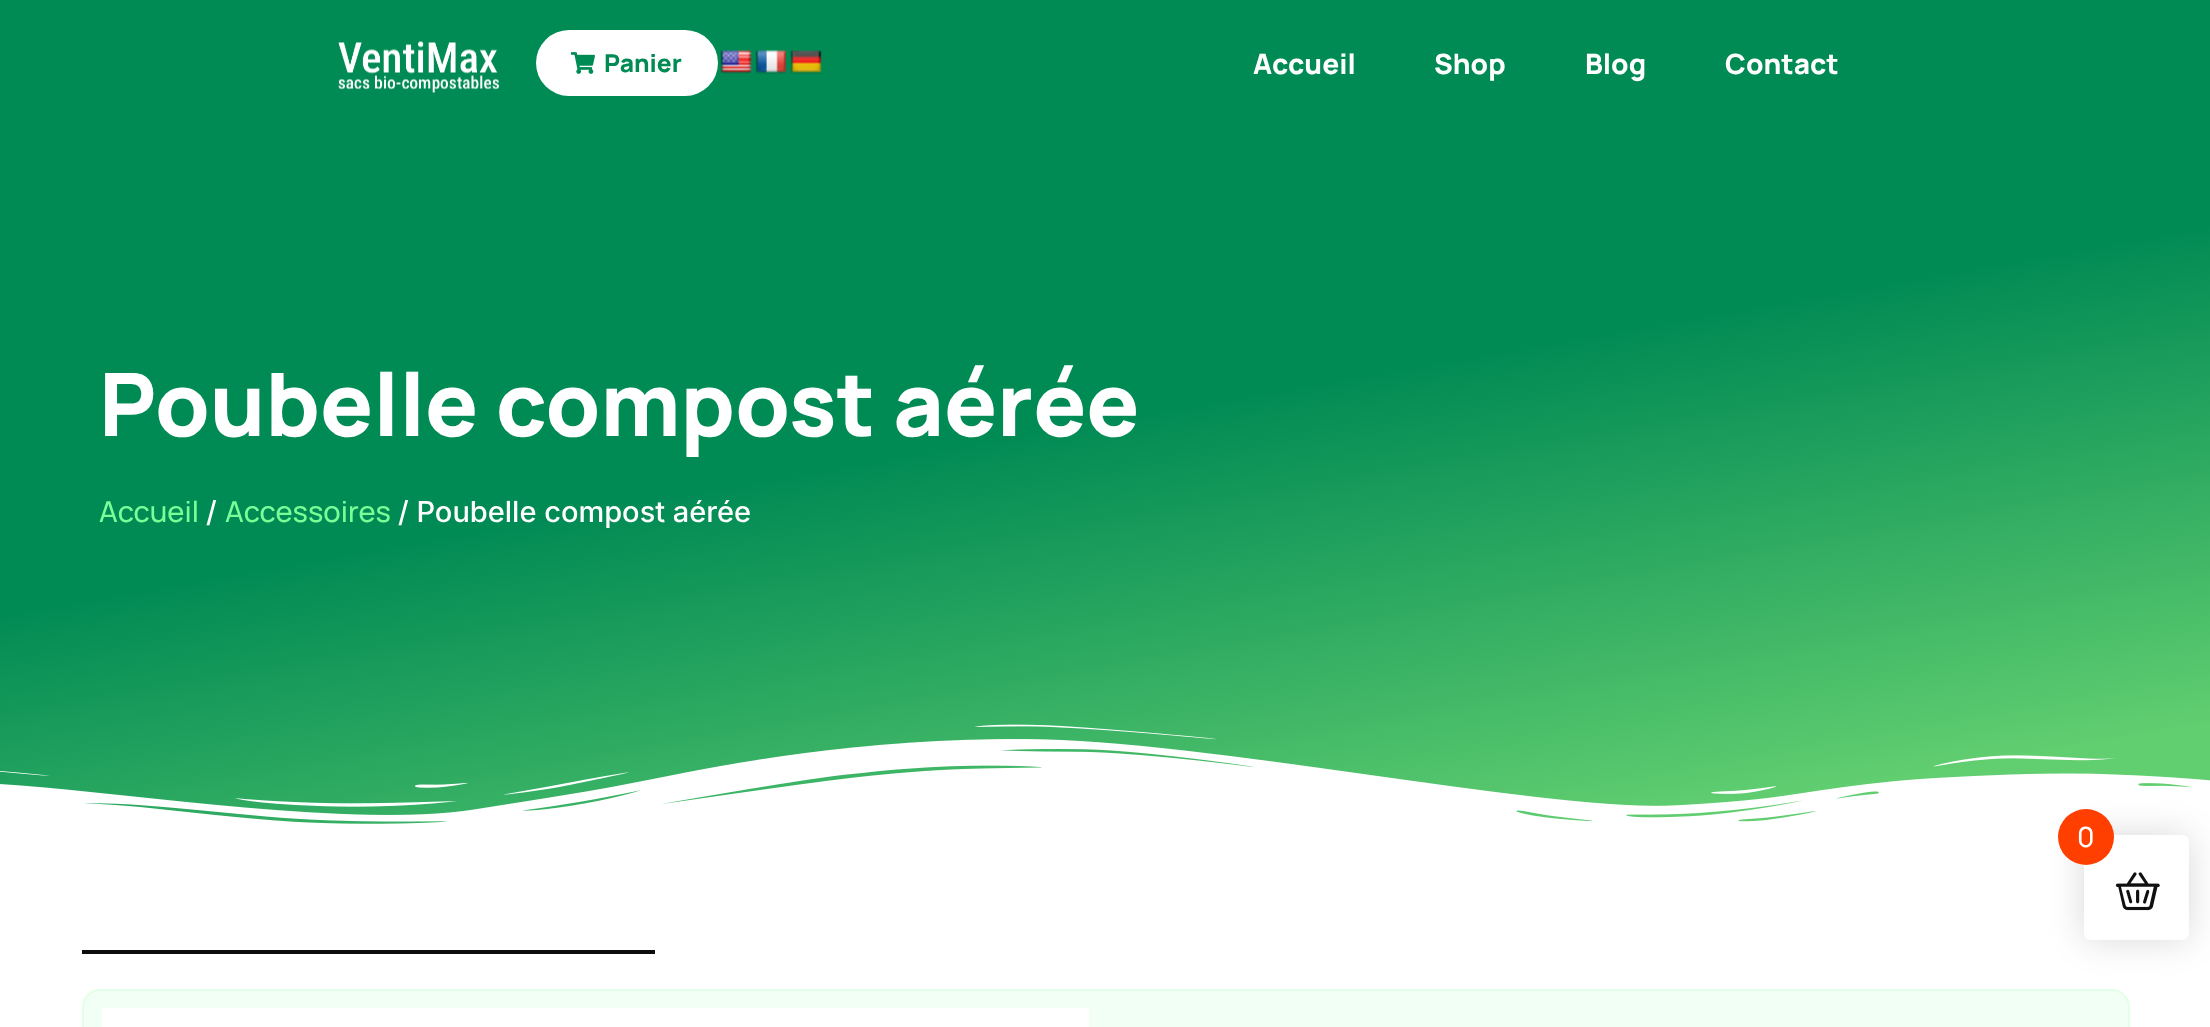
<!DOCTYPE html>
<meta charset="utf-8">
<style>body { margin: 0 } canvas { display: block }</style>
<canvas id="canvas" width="2210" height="1027"></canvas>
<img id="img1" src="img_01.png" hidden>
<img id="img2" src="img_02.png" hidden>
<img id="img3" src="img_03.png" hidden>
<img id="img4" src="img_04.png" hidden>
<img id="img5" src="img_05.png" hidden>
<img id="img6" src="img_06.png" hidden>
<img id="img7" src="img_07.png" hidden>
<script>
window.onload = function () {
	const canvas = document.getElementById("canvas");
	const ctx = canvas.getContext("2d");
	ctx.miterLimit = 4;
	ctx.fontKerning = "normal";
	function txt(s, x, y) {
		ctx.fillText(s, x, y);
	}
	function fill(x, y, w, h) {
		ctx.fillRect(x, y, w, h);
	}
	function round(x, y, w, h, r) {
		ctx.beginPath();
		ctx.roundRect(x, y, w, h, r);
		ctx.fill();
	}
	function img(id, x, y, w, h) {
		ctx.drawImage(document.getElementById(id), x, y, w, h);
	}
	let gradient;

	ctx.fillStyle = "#FFFFFF";
	fill(0, 0, 2210, 1027);
	gradient = ctx.createLinearGradient(997, -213, 1213, 1014);
	gradient.addColorStop(0.51, "#008A54");
	gradient.addColorStop(0.91, "#61CE70");
	ctx.fillStyle = gradient;
	fill(0, 0, 2210, 824);
	img("img1", 338, 41, 161, 52);
	ctx.fillStyle = "#FFFFFF";
	round(536, 30, 182, 66, 33);
	img("img2", 571, 52, 24, 22);
	img("img3", 720, 49, 32, 25);
	img("img4", 755, 49, 31, 25);
	img("img5", 790, 50, 32, 24);
	img("img6", 0, 724, 2210, 114);
	ctx.fillStyle = "#0C0D0E";
	fill(82, 950, 573, 4);
	ctx.fillStyle = "#F2FFF4";
	ctx.beginPath();
	ctx.roundRect(83, 990, 2046, 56, 17);
	ctx.fill();
	ctx.strokeStyle = "#E4FFE8";
	ctx.lineWidth = 2;
	ctx.stroke();
	ctx.fillStyle = "#FFFFFF";
	fill(102, 1008, 987, 19);
	ctx.fillStyle = "rgba(0, 0, 0, 0.15)";
	ctx.filter = "blur(17.5px)";
	ctx.beginPath();
	ctx.roundRect(2084, 835, 105, 105, 7);
	ctx.fill();
	ctx.filter = "none";
	ctx.fillStyle = "#FFFFFF";
	round(2084, 835, 105, 105, 7);
	ctx.fillStyle = "#FF3F00";
	ctx.beginPath();
	ctx.arc(2086, 837, 28, 0, Math.PI * 2);
	ctx.fill();
	img("img7", 2115, 872, 45, 39);
	ctx.font = "800 24.5px Manrope";
	ctx.fillStyle = "#008A54";
	txt("Panier", 604, 72);
	ctx.font = "800 28px Manrope";
	ctx.fillStyle = "#FFFFFF";
	txt("Accueil", 1253, 74);
	txt("Shop", 1434, 74);
	txt("Blog", 1585, 74);
	txt("Contact", 1725, 74);
	ctx.font = "800 87.5px Manrope";
	txt("Poubelle compost aérée", 99, 436);
	ctx.font = "500 29px Manrope";
	ctx.fillStyle = "#78FF97";
	txt("Accueil", 99, 522);
	ctx.font = "500 29px Inter";
	ctx.fillStyle = "#FFFFFF";
	txt("/", 206, 522);
	ctx.font = "500 29px Manrope";
	ctx.fillStyle = "#78FF97";
	txt("Accessoires", 225, 522);
	ctx.font = "500 29px Inter";
	ctx.fillStyle = "#FFFFFF";
	txt("/ Poubelle compost aérée", 398, 522);
	ctx.font = "500 28px Manrope";
	txt("0", 2077, 847);
};
</script>
